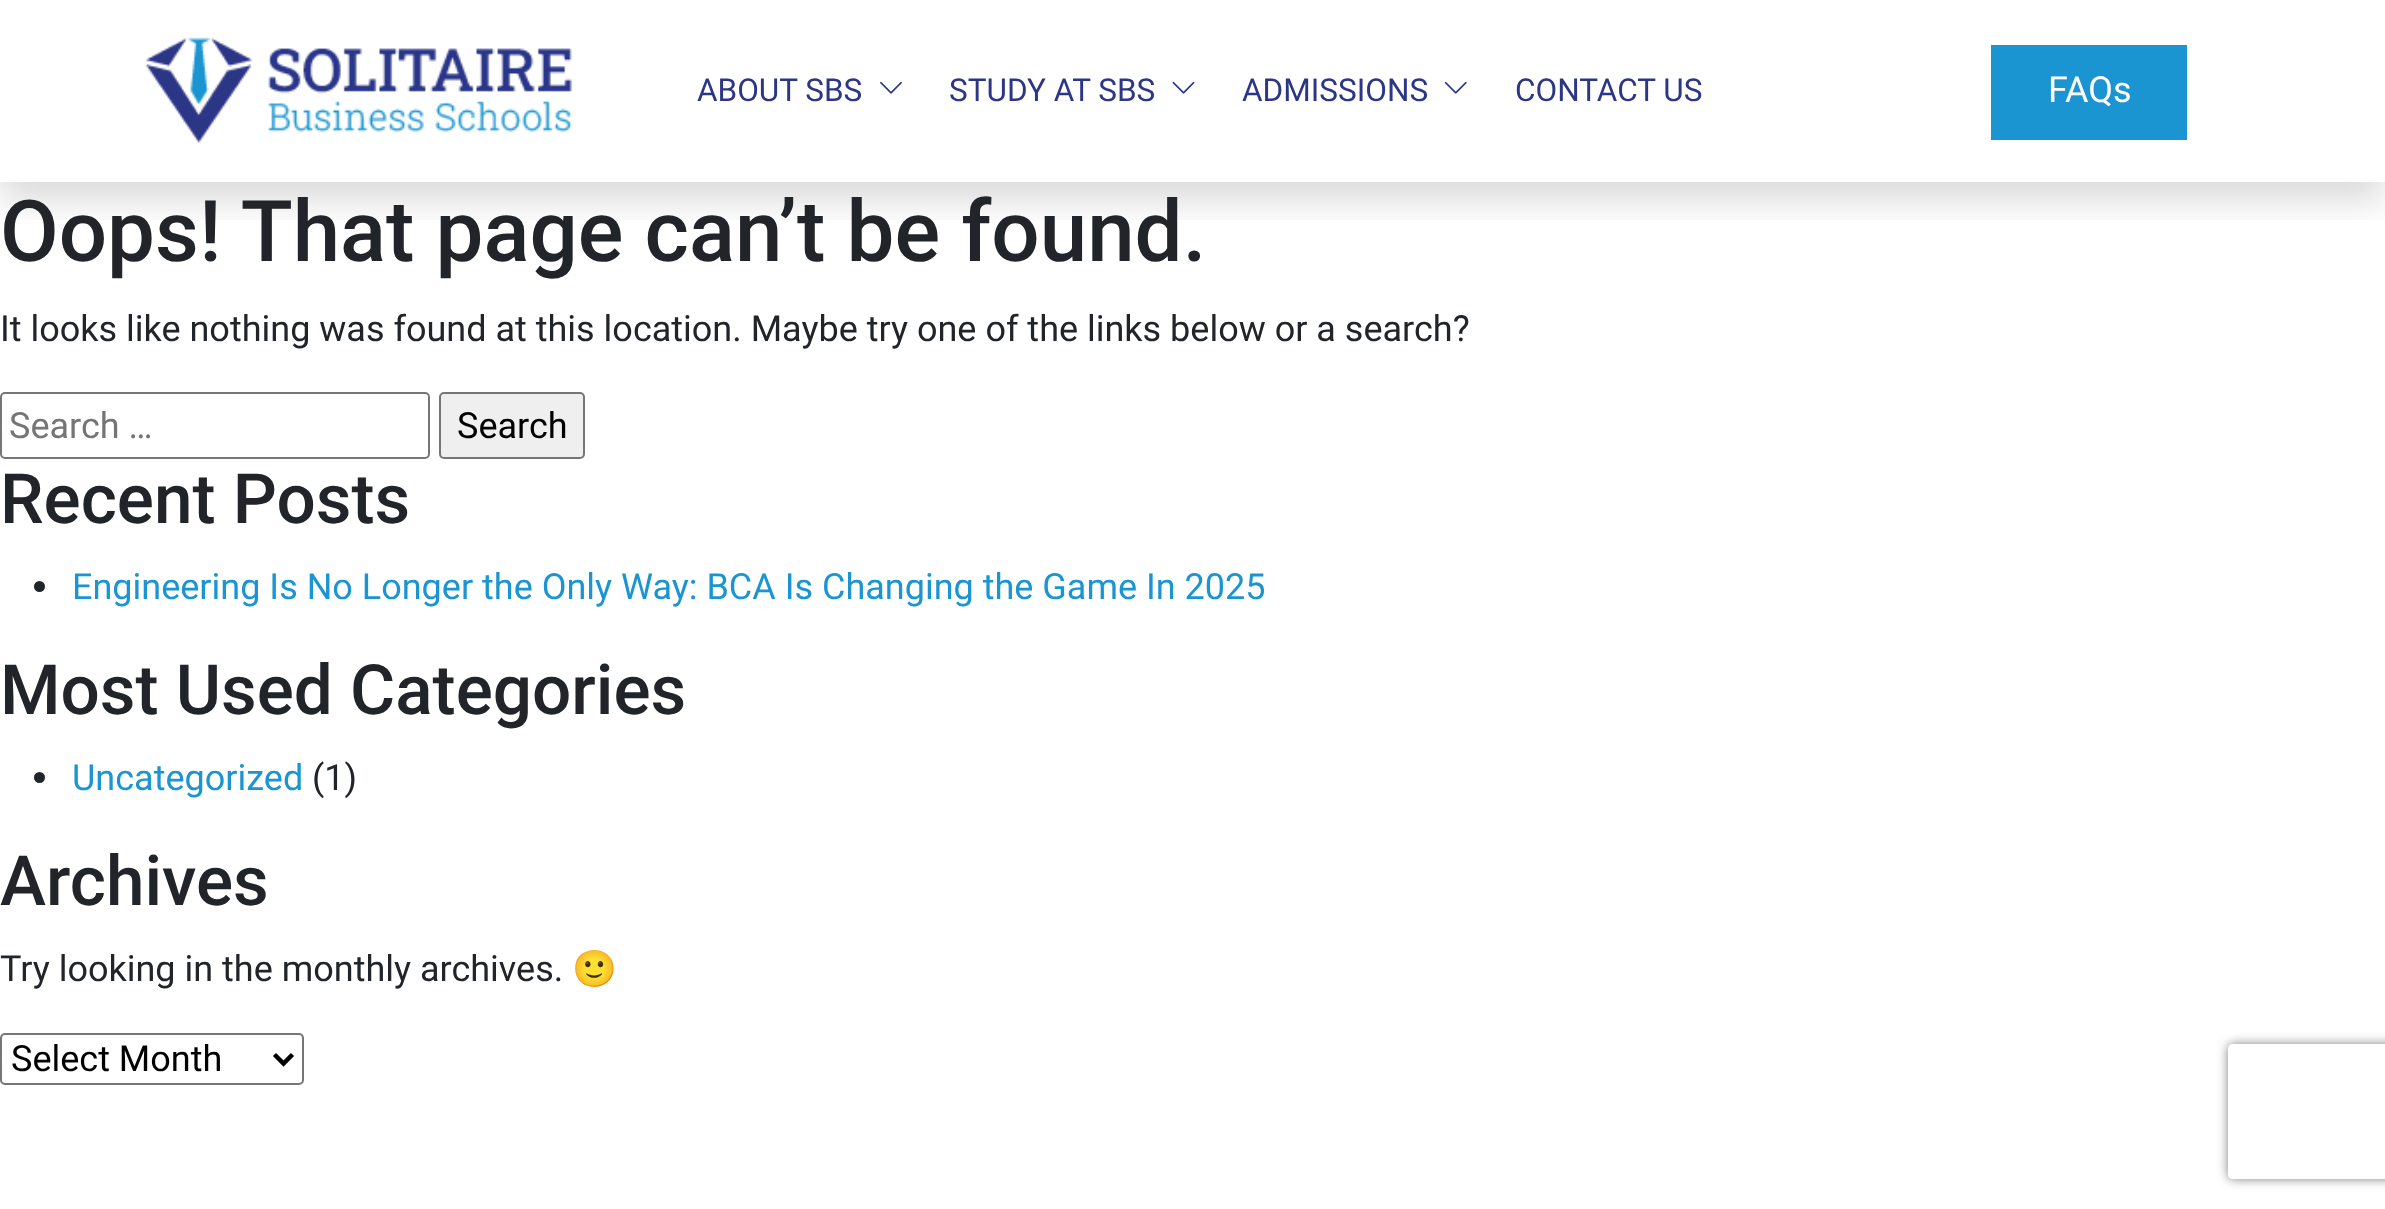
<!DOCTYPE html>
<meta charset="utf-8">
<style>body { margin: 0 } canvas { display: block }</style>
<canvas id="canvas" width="2385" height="1209"></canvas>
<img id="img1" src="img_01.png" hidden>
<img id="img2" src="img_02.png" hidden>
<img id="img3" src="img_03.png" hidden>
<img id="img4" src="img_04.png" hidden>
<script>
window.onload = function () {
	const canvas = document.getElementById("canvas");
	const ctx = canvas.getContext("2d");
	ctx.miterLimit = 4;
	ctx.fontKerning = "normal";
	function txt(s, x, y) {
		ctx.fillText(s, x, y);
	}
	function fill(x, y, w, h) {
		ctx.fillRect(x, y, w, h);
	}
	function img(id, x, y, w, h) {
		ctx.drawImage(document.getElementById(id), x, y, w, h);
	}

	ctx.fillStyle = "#FFFFFF";
	fill(0, 0, 2385, 1209);
	ctx.save();
	ctx.beginPath();
	ctx.rect(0, 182, 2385, 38);
	ctx.clip();
	ctx.fillStyle = "rgba(0, 0, 0, 0.15)";
	ctx.filter = "blur(18px)";
	ctx.beginPath();
	ctx.rect(0, 18, 2385, 182);
	ctx.fill();
	ctx.filter = "none";
	ctx.restore();
	img("img1", 146, 37, 427, 106);
	img("img2", 880, 81, 22, 13);
	img("img3", 1172, 81, 23, 13);
	img("img4", 1444, 81, 23, 13);
	ctx.fillStyle = "#1B95D2";
	fill(1991, 45, 196, 95);
	ctx.beginPath();
	ctx.roundRect(1, 393, 428, 65, 4);
	ctx.strokeStyle = "#767676";
	ctx.lineWidth = 2;
	ctx.stroke();
	ctx.fillStyle = "#EFEFEF";
	ctx.beginPath();
	ctx.roundRect(440, 393, 144, 65, 4);
	ctx.fill();
	ctx.stroke();
	ctx.fillStyle = "#212529";
	ctx.beginPath();
	ctx.arc(39.5, 586.5, 5.5, 0, Math.PI * 2);
	ctx.fill();
	ctx.beginPath();
	ctx.arc(39.5, 777.5, 5.5, 0, Math.PI * 2);
	ctx.fill();
	ctx.beginPath();
	ctx.roundRect(1, 1034, 302, 50, 4);
	ctx.stroke();
	ctx.beginPath();
	ctx.moveTo(274.5, 1054.5);
	ctx.lineTo(283.5, 1063.5);
	ctx.lineTo(292.5, 1054.5);
	ctx.strokeStyle = "#000000";
	ctx.lineWidth = 4.5;
	ctx.stroke();
	ctx.save();
	ctx.beginPath();
	ctx.moveTo(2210, 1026);
	ctx.lineTo(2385, 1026);
	ctx.lineTo(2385, 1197);
	ctx.lineTo(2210, 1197);
	ctx.closePath();
	ctx.moveTo(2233, 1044);
	ctx.lineTo(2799, 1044);
	ctx.bezierCurveTo(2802, 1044, 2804, 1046, 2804, 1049);
	ctx.lineTo(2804, 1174);
	ctx.bezierCurveTo(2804, 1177, 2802, 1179, 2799, 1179);
	ctx.lineTo(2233, 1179);
	ctx.bezierCurveTo(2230, 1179, 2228, 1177, 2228, 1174);
	ctx.lineTo(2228, 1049);
	ctx.bezierCurveTo(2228, 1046, 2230, 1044, 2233, 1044);
	ctx.closePath();
	ctx.clip("evenodd");
	ctx.fillStyle = "#808080";
	ctx.filter = "blur(5.5px)";
	ctx.beginPath();
	ctx.roundRect(2228, 1044, 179, 135, 5);
	ctx.fill();
	ctx.filter = "none";
	ctx.restore();
	ctx.font = "31.5px Roboto";
	ctx.fillStyle = "#2C3686";
	txt("ABOUT SBS", 697, 101);
	txt("STUDY AT SBS", 949, 101);
	txt("ADMISSIONS", 1242, 101);
	txt("CONTACT US", 1515, 101);
	ctx.font = "36px Roboto";
	ctx.fillStyle = "#FFFFFF";
	txt("FAQs", 2048, 102);
	ctx.font = "500 85.25px Roboto";
	ctx.fillStyle = "#212529";
	txt("Oops! That page can’t be found.", 0, 261);
	ctx.font = "36px Roboto";
	txt("It looks like nothing was found at this location. Maybe try one of the links below or a search?", 0, 341);
	ctx.fillStyle = "#757575";
	txt("Search …", 9, 438);
	ctx.fillStyle = "#000000";
	txt("Search", 457, 438);
	ctx.font = "500 69.25px Roboto";
	ctx.fillStyle = "#212529";
	txt("Recent Posts", 0, 523);
	ctx.font = "36px Roboto";
	ctx.fillStyle = "#1B95D2";
	txt("Engineering Is No Longer the Only Way: BCA Is Changing the Game In 2025", 72, 599);
	ctx.font = "500 69.25px Roboto";
	ctx.fillStyle = "#212529";
	txt("Most Used Categories", 0, 714);
	ctx.font = "36px Roboto";
	ctx.fillStyle = "#1B95D2";
	txt("Uncategorized", 72, 790);
	ctx.fillStyle = "#212529";
	txt("(1)", 312, 790);
	ctx.font = "500 69.25px Roboto";
	txt("Archives", 0, 905);
	ctx.font = "36px Roboto";
	txt("Try looking in the monthly archives.", 0, 981);
	ctx.font = "36px Noto Color Emoji";
	txt("🙂", 572, 981);
	ctx.font = "36px Roboto";
	ctx.fillStyle = "#000000";
	txt("Select Month", 11, 1071);
};
</script>
